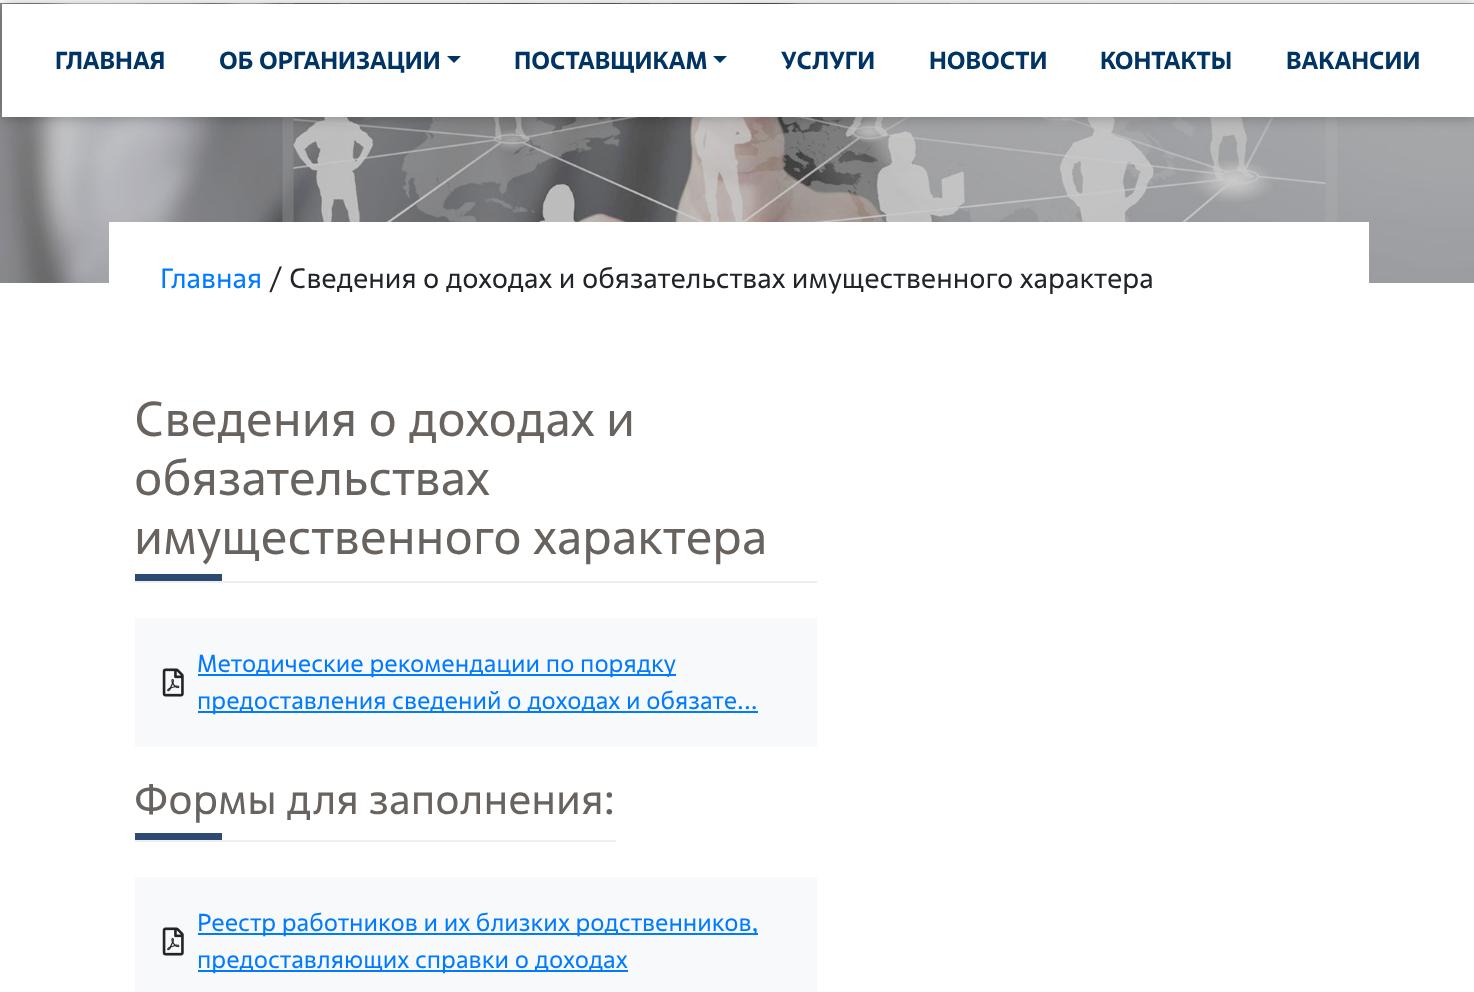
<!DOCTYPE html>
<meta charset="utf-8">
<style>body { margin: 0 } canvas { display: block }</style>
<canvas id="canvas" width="1474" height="992"></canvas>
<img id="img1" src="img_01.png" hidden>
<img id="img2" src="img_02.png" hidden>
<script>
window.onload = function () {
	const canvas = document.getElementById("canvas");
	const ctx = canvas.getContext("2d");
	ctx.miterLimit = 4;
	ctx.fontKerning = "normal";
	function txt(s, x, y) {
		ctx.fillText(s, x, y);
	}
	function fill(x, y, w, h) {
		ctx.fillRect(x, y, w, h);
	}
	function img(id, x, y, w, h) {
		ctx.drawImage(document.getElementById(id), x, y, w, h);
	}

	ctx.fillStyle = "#FFFFFF";
	fill(0, 0, 1474, 992);
	img("img1", 0, 3, 1474, 280);
	ctx.save();
	ctx.beginPath();
	ctx.moveTo(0, 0);
	ctx.lineTo(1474, 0);
	ctx.lineTo(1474, 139);
	ctx.lineTo(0, 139);
	ctx.closePath();
	ctx.moveTo(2, 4);
	ctx.lineTo(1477, 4);
	ctx.lineTo(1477, 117);
	ctx.lineTo(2, 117);
	ctx.closePath();
	ctx.clip("evenodd");
	ctx.fillStyle = "rgba(0, 0, 0, 0.3)";
	ctx.filter = "blur(7px)";
	ctx.beginPath();
	ctx.rect(2, 4, 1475, 113);
	ctx.fill();
	ctx.filter = "none";
	ctx.restore();
	fill(2, 4, 1472, 113);
	ctx.fillStyle = "#003464";
	ctx.beginPath();
	ctx.moveTo(447, 56);
	ctx.lineTo(461, 56);
	ctx.lineTo(454, 63);
	ctx.closePath();
	ctx.fill();
	ctx.beginPath();
	ctx.moveTo(713, 56);
	ctx.lineTo(727, 56);
	ctx.lineTo(720, 63);
	ctx.closePath();
	ctx.fill();
	ctx.fillStyle = "#FFFFFF";
	fill(109, 222, 1260, 61);
	ctx.fillStyle = "#EEEEEE";
	fill(135, 581, 682, 2);
	ctx.fillStyle = "#2B4B73";
	fill(135, 574, 87, 7);
	ctx.fillStyle = "#F8F9FA";
	fill(135, 618, 682, 129);
	img("img2", 162, 668, 22, 29);
	ctx.fillStyle = "#007BFF";
	fill(198, 674, 478, 2);
	fill(198, 711, 560, 2);
	ctx.fillStyle = "#EEEEEE";
	fill(135, 840, 481, 2);
	ctx.fillStyle = "#2B4B73";
	fill(135, 833, 87, 7);
	ctx.fillStyle = "#F8F9FA";
	fill(135, 877, 682, 115);
	img("img2", 162, 927, 22, 29);
	ctx.fillStyle = "#007BFF";
	fill(198, 933, 560, 2);
	fill(198, 970, 430, 2);
	ctx.font = "bold 24.5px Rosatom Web";
	ctx.fillStyle = "#003464";
	txt("ГЛАВНАЯ", 55, 69);
	txt("ОБ ОРГАНИЗАЦИИ", 219, 69);
	txt("ПОСТАВЩИКАМ", 514, 69);
	txt("УСЛУГИ", 781, 69);
	txt("НОВОСТИ", 929, 69);
	txt("КОНТАКТЫ", 1100, 69);
	txt("ВАКАНСИИ", 1286, 69);
	ctx.font = "28px Rosatom Web";
	ctx.fillStyle = "#007BFF";
	txt("Главная", 160, 288);
	ctx.fillStyle = "#212529";
	txt("/ Сведения о доходах и обязательствах имущественного характера", 269, 288);
	ctx.font = "49px Rosatom Web";
	ctx.fillStyle = "#68635F";
	txt("Сведения о доходах и", 134, 436);
	txt("обязательствах", 134, 495);
	txt("имущественного характера", 134, 554);
	ctx.font = "24.5px Rosatom Web";
	ctx.fillStyle = "#007BFF";
	txt("Методические рекомендации по порядку", 197, 672);
	txt("предоставления сведений о доходах и обязате...", 197, 709);
	ctx.font = "42px Rosatom Web";
	ctx.fillStyle = "#68635F";
	txt("Формы для заполнения:", 134, 814);
	ctx.font = "24.5px Rosatom Web";
	ctx.fillStyle = "#007BFF";
	txt("Реестр работников и их близких родственников,", 197, 931);
	txt("предоставляющих справки о доходах", 197, 968);
};
</script>
